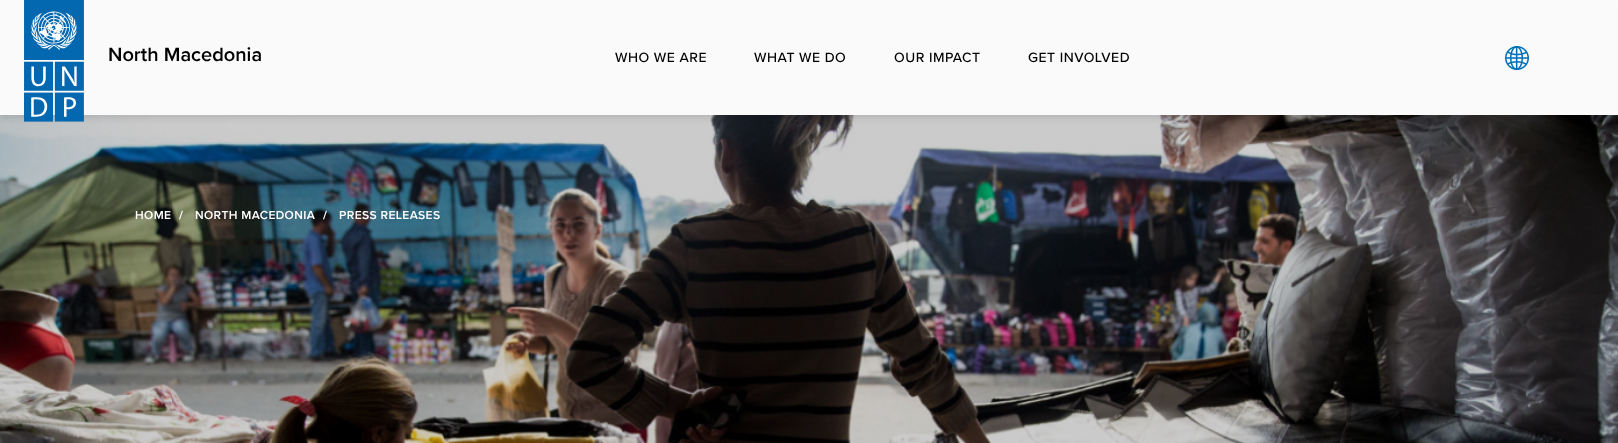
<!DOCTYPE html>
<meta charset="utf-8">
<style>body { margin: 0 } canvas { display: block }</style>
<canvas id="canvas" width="1618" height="443"></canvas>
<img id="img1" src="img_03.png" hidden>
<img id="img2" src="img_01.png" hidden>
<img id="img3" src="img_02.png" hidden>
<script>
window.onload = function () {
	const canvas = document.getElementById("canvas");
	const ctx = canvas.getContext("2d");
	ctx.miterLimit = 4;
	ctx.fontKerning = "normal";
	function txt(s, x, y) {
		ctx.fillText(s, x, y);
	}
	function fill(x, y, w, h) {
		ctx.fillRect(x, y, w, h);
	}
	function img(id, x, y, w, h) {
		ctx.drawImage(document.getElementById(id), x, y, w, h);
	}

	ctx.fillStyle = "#FFFFFF";
	fill(0, 0, 1618, 443);
	img("img1", 0, 115, 1618, 328);
	ctx.fillStyle = "rgba(0, 0, 0, 0.1)";
	ctx.filter = "blur(3px)";
	ctx.beginPath();
	ctx.rect(0, 3, 1618, 115);
	ctx.fill();
	ctx.filter = "none";
	ctx.fillStyle = "#FAFAFA";
	fill(0, 1, 1618, 114);
	img("img2", 24, 0, 60, 122);
	img("img3", 1505, 46, 24, 24);
	ctx.font = "600 20px Proxima Nova";
	ctx.fillStyle = "#000000";
	txt("North Macedonia", 108, 61);
	ctx.letterSpacing = "0.5px";
	ctx.font = "500 14px Proxima Nova";
	txt("WHO WE ARE", 615, 62);
	txt("WHAT WE DO", 754, 62);
	txt("OUR IMPACT", 894, 62);
	txt("GET INVOLVED", 1028, 62);
	ctx.letterSpacing = "0.4px";
	ctx.font = "600 12px Proxima Nova";
	ctx.fillStyle = "#FFFFFF";
	txt("HOME", 135, 219);
	ctx.letterSpacing = "0px";
	ctx.font = "bold 12px Proxima Nova";
	txt("/", 179, 219);
	ctx.letterSpacing = "0.4px";
	ctx.font = "600 12px Proxima Nova";
	txt("NORTH MACEDONIA", 195, 219);
	ctx.letterSpacing = "0px";
	ctx.font = "bold 12px Proxima Nova";
	txt("/", 323, 219);
	ctx.letterSpacing = "0.4px";
	ctx.font = "600 12px Proxima Nova";
	txt("PRESS RELEASES", 339, 219);
};
</script>
